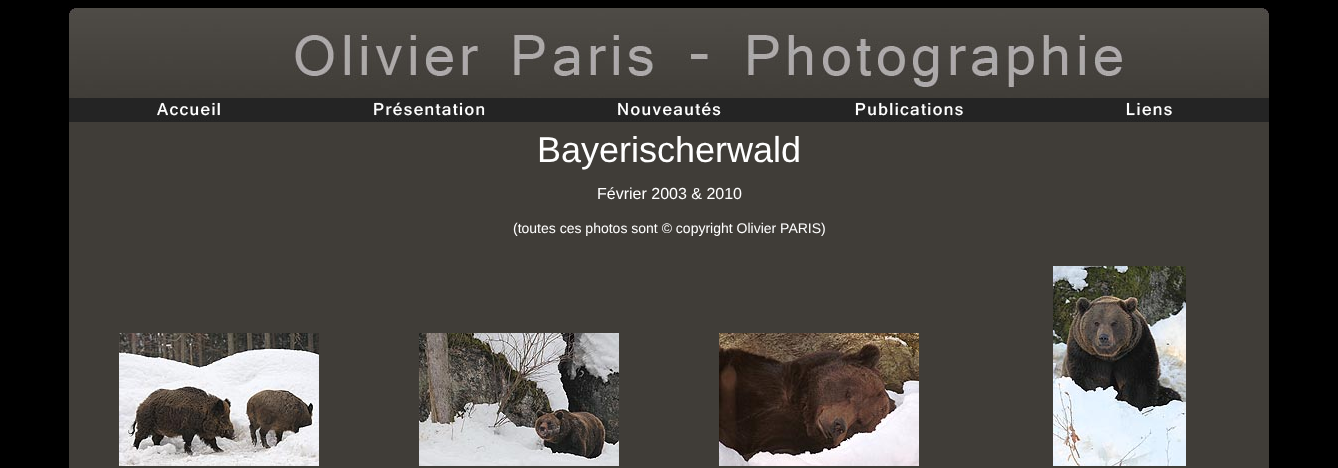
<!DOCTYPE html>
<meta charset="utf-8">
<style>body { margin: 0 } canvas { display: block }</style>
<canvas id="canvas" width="1338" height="468"></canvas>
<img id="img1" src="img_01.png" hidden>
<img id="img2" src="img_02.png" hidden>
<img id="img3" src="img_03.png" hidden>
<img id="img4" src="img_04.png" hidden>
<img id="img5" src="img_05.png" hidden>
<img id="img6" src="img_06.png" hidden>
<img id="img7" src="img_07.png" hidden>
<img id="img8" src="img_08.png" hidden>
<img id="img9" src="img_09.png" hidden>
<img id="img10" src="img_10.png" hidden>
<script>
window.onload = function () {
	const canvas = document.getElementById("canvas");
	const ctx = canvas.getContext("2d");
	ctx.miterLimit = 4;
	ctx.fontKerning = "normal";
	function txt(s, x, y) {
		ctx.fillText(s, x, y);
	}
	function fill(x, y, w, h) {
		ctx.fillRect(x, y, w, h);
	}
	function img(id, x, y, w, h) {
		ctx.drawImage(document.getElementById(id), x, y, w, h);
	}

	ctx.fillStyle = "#000000";
	fill(0, 0, 1338, 468);
	img("img1", 69, 8, 1200, 90);
	ctx.fillStyle = "#242424";
	fill(69, 98, 1200, 24);
	img("img2", 157, 100, 63, 21);
	img("img3", 373, 99, 112, 23);
	img("img4", 614, 99, 110, 22);
	img("img5", 854, 101, 109, 21);
	img("img6", 1126, 100, 46, 22);
	ctx.fillStyle = "#403D38";
	fill(69, 122, 1200, 346);
	img("img7", 119, 333, 200, 133);
	img("img8", 419, 333, 200, 133);
	img("img9", 719, 333, 200, 133);
	img("img10", 1053, 266, 133, 200);
	ctx.font = "36px Liberation Sans";
	ctx.fillStyle = "#FFFFFF";
	txt("Bayerischerwald", 537, 162);
	ctx.font = "16px Liberation Sans";
	txt("Février 2003 & 2010", 597, 199);
	ctx.font = "14px Liberation Sans";
	txt("(toutes ces photos sont © copyright Olivier PARIS)", 513, 233);
};
</script>
